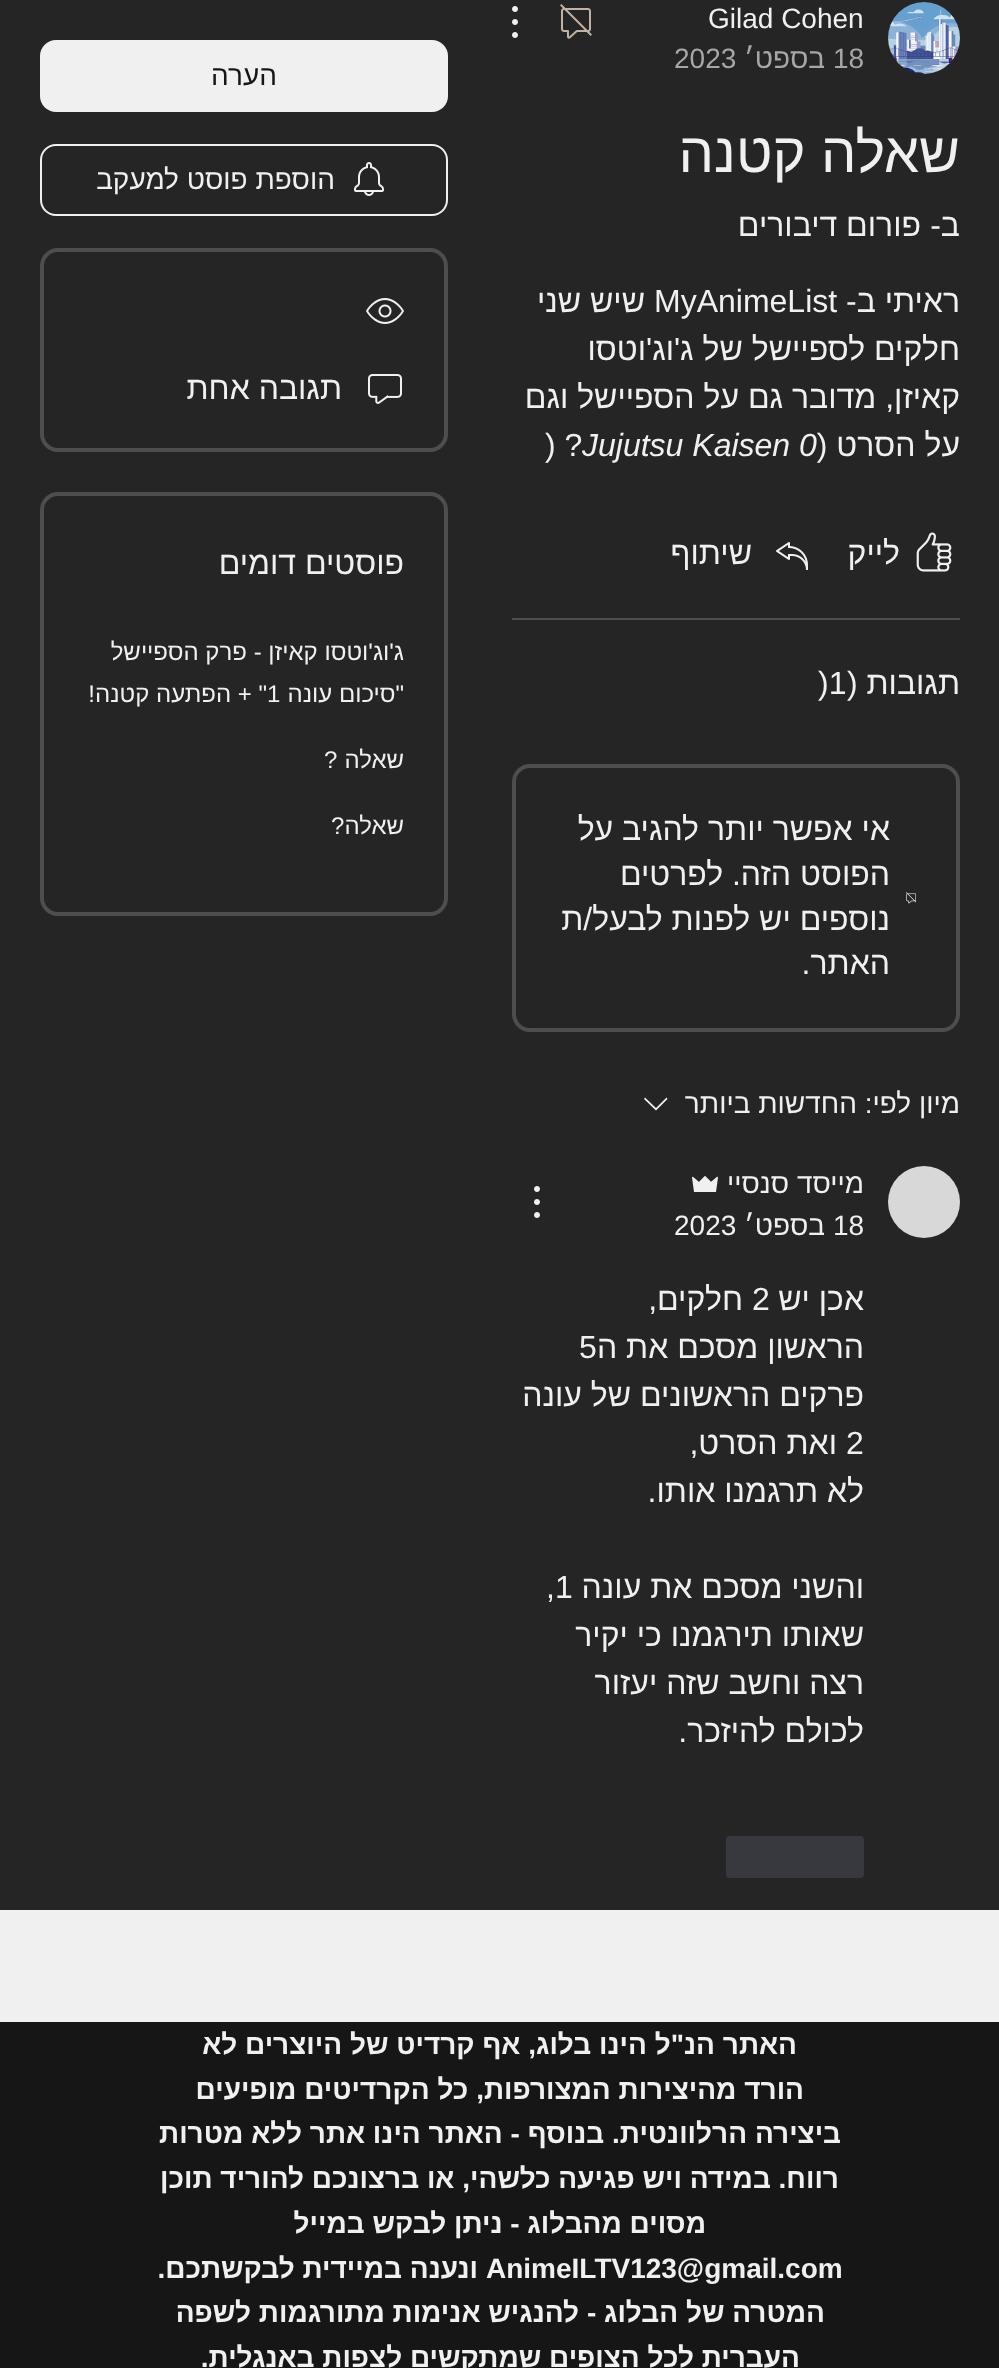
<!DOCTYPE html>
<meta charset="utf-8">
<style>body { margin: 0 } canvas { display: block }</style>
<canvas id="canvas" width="999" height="2368"></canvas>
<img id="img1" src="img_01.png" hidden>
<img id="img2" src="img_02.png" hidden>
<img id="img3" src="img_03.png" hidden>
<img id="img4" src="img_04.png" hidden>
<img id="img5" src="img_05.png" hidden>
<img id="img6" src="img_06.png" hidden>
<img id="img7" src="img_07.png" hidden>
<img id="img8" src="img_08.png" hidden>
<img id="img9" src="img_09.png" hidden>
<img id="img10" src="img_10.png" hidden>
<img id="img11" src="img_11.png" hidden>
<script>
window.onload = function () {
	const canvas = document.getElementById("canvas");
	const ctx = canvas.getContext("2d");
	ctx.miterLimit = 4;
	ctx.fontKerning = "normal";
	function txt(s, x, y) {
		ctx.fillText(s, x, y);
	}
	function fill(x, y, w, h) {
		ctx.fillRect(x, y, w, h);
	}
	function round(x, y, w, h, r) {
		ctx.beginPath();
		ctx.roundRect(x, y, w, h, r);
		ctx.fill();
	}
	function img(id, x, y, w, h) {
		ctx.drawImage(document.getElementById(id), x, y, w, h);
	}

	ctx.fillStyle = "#F0F0F0";
	fill(0, 0, 999, 2368);
	ctx.fillStyle = "#252525";
	fill(0, 0, 999, 1910);
	img("img1", 888, 2, 72, 72);
	img("img2", 560, 4, 32, 35);
	img("img3", 512, 6, 6, 32);
	img("img4", 916, 532, 36, 40);
	img("img5", 776, 542, 32, 28);
	ctx.fillStyle = "#4E4E4E";
	fill(512, 618, 448, 2);
	ctx.beginPath();
	ctx.roundRect(514, 766, 444, 264, 16);
	ctx.strokeStyle = "#4E4E4E";
	ctx.lineWidth = 4;
	ctx.stroke();
	img("img6", 906, 892, 10, 12);
	ctx.fillStyle = "#F0F0F0";
	ctx.beginPath();
	ctx.moveTo(666.5, 1097.5);
	ctx.lineTo(667.5, 1099);
	ctx.lineTo(656, 1110.5);
	ctx.lineTo(644, 1099);
	ctx.lineTo(645, 1097.5);
	ctx.lineTo(656, 1108);
	ctx.closePath();
	ctx.fill("evenodd");
	ctx.fillStyle = "#D8D8D8";
	ctx.beginPath();
	ctx.arc(924, 1202, 36, 0, Math.PI * 2);
	ctx.fill();
	img("img7", 692, 1176, 26, 16);
	img("img8", 534, 1186, 6, 32);
	ctx.fillStyle = "#38393F";
	round(726, 1836, 138, 42, 4);
	ctx.fillStyle = "#F0F0F0";
	round(40, 40, 408, 72, 16);
	ctx.beginPath();
	ctx.roundRect(41, 145, 406, 70, 15);
	ctx.strokeStyle = "#F0F0F0";
	ctx.lineWidth = 2;
	ctx.stroke();
	img("img9", 354, 162, 30, 34);
	ctx.beginPath();
	ctx.roundRect(42, 250, 404, 200, 16);
	ctx.strokeStyle = "#4E4E4E";
	ctx.lineWidth = 4;
	ctx.stroke();
	img("img10", 366, 298, 38, 26);
	img("img11", 368, 374, 34, 30);
	ctx.beginPath();
	ctx.roundRect(42, 494, 404, 420, 16);
	ctx.stroke();
	ctx.fillStyle = "#161616";
	fill(0, 2022, 999, 346);
	ctx.font = "28px Liberation Sans";
	ctx.fillStyle = "#F0F0F0";
	txt("Gilad Cohen", 708, 28);
	ctx.fillStyle = "#A7A7A7";
	txt("18", 833, 68);
	ctx.direction = "rtl";
	txt("בספט׳", 825, 68);
	ctx.direction = "ltr";
	txt("2023", 674, 68);
	ctx.direction = "rtl";
	ctx.font = "56px Liberation Sans";
	ctx.fillStyle = "#F0F0F0";
	txt("שאלה קטנה", 960, 172);
	ctx.font = "32px Liberation Sans";
	txt("ב-", 960, 236);
	txt("פורום דיבורים", 921, 236);
	txt("ראיתי ב-", 960, 312);
	ctx.direction = "ltr";
	txt("MyAnimeList", 654, 312);
	ctx.direction = "rtl";
	txt("שיש שני", 645, 312);
	txt("חלקים לספיישל של ג'וג'וטסו", 960, 360);
	txt("קאיזן, מדובר גם על הספיישל וגם", 960, 408);
	txt("על הסרט (", 960, 456);
	ctx.direction = "ltr";
	ctx.font = "italic 32px Liberation Sans";
	txt("Jujutsu Kaisen 0", 582, 456);
	ctx.font = "32px Liberation Sans";
	txt(") ?", 545, 456);
	ctx.direction = "rtl";
	txt("לייק", 900, 564);
	txt("שיתוף", 752, 564);
	txt("תגובות (", 960, 694);
	ctx.direction = "ltr";
	txt(")1", 818, 694);
	ctx.direction = "rtl";
	txt("אי אפשר יותר להגיב על", 890, 840);
	txt("הפוסט הזה. לפרטים", 890, 885);
	txt("נוספים יש לפנות לבעל/ת", 890, 930);
	txt("האתר.", 890, 974);
	ctx.font = "28px Liberation Sans";
	txt("מיון לפי:", 960, 1113);
	txt("החדשות ביותר", 857, 1113);
	txt("מייסד סנסיי", 864, 1193);
	ctx.direction = "ltr";
	txt("18", 833, 1235);
	ctx.direction = "rtl";
	txt("בספט׳", 825, 1235);
	ctx.direction = "ltr";
	txt("2023", 674, 1235);
	ctx.direction = "rtl";
	ctx.font = "32px Liberation Sans";
	txt("אכן יש", 864, 1310);
	ctx.direction = "ltr";
	txt("2", 752, 1310);
	ctx.direction = "rtl";
	txt("חלקים,", 743, 1310);
	txt("הראשון מסכם את ה", 864, 1358);
	ctx.direction = "ltr";
	txt("5", 579, 1358);
	ctx.direction = "rtl";
	txt("פרקים הראשונים של עונה", 864, 1406);
	ctx.direction = "ltr";
	txt("2", 846, 1454);
	ctx.direction = "rtl";
	txt("ואת הסרט,", 837, 1454);
	txt("לא תרגמנו אותו.", 864, 1502);
	txt("והשני מסכם את עונה", 864, 1598);
	ctx.direction = "ltr";
	txt(",1", 546, 1598);
	ctx.direction = "rtl";
	txt("שאותו תירגמנו כי יקיר", 864, 1646);
	txt("רצה וחשב שזה יעזור", 864, 1694);
	txt("לכולם להיזכר.", 864, 1742);
	ctx.font = "28px Liberation Sans";
	ctx.fillStyle = "#161616";
	txt("הערה", 277, 85);
	ctx.fillStyle = "#F0F0F0";
	txt("הוספת פוסט למעקב", 335, 189);
	ctx.font = "32px Liberation Sans";
	txt("תגובה אחת", 342, 399);
	txt("פוסטים דומים", 404, 574);
	ctx.font = "24px Liberation Sans";
	txt("ג'וג'וטסו קאיזן - פרק הספיישל", 404, 660);
	txt("\"סיכום עונה", 404, 702);
	ctx.direction = "ltr";
	txt("1", 267, 702);
	ctx.direction = "rtl";
	txt("\" + הפתעה קטנה!", 267, 702);
	txt("שאלה", 404, 768);
	ctx.direction = "ltr";
	txt("?", 324, 768);
	ctx.direction = "rtl";
	txt("שאלה?", 404, 834);
	ctx.font = "bold 28px Liberation Sans";
	txt("האתר הנ\"ל הינו בלוג, אף קרדיט של היוצרים לא", 797, 2054);
	txt("הורד מהיצירות המצורפות, כל הקרדיטים מופיעים", 804, 2099);
	txt("ביצירה הרלוונטית. בנוסף - האתר הינו אתר ללא מטרות", 841, 2143);
	txt("רווח. במידה ויש פגיעה כלשהי, או ברצונכם להוריד תוכן", 839, 2188);
	txt("מסוים מהבלוג - ניתן לבקש במייל", 706, 2233);
	ctx.direction = "ltr";
	txt("AnimeILTV123@gmail.com", 486, 2278);
	ctx.direction = "rtl";
	txt("ונענה במיידית לבקשתכם.", 478, 2278);
	txt("המטרה של הבלוג - להנגיש אנימות מתורגמות לשפה", 825, 2322);
	txt("העברית לכל הצופים שמתקשים לצפות באנגלית.", 800, 2367);
};
</script>
